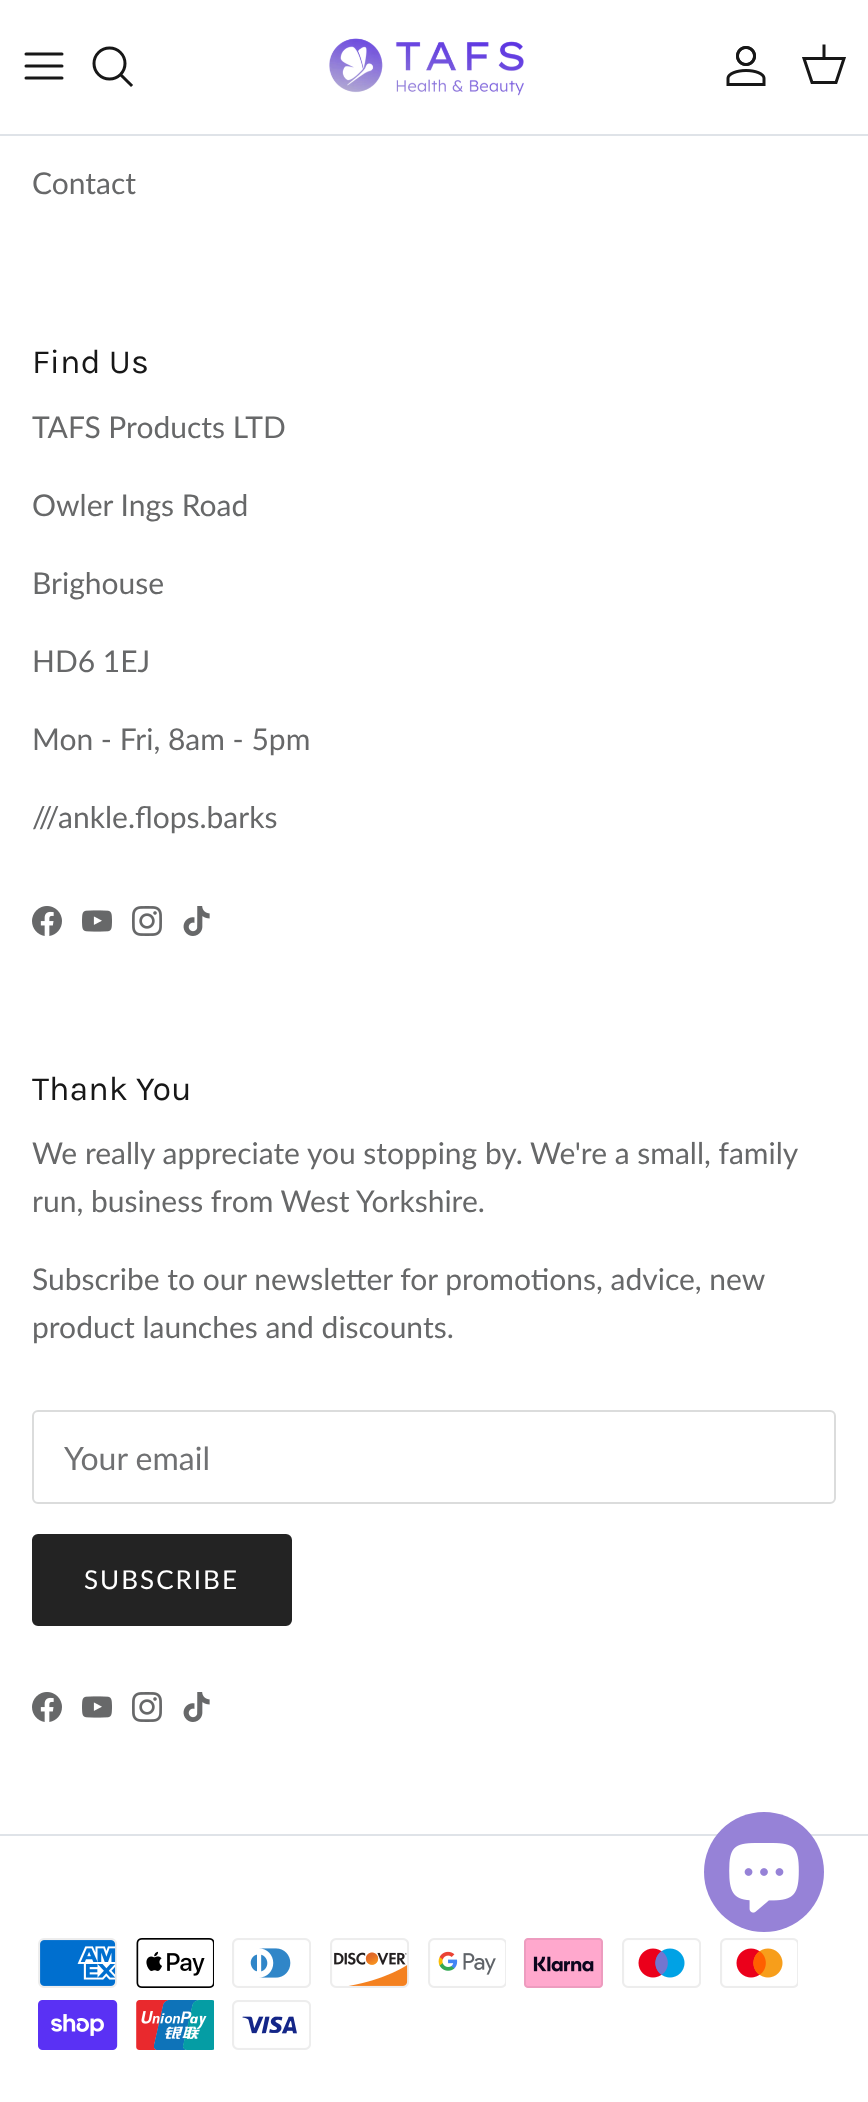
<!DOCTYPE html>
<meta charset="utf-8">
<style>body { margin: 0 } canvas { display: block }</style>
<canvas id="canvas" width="868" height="2102"></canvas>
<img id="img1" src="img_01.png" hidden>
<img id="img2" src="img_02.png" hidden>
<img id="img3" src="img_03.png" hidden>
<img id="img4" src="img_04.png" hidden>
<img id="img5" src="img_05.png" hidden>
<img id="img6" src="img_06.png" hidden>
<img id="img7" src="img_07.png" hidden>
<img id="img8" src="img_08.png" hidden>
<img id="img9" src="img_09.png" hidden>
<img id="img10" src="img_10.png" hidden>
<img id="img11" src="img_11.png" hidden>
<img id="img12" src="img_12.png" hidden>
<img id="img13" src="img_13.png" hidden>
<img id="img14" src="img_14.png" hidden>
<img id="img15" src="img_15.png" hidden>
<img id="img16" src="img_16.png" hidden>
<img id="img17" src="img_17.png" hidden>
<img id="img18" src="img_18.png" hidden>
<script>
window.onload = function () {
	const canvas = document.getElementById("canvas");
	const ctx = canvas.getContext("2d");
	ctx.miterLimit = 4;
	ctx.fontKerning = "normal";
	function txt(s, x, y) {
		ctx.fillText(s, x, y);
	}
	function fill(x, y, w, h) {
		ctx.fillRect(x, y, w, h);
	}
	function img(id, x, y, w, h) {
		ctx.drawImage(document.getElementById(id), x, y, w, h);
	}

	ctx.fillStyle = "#FFFFFF";
	fill(0, 0, 868, 2102);
	ctx.fillStyle = "#DFE3E8";
	fill(0, 134, 868, 2);
	ctx.beginPath();
	ctx.moveTo(26, 66);
	ctx.lineTo(62, 66);
	ctx.moveTo(26, 54);
	ctx.lineTo(62, 54);
	ctx.moveTo(26, 78);
	ctx.lineTo(62, 78);
	ctx.strokeStyle = "#171717";
	ctx.lineWidth = 3;
	ctx.lineCap = "round";
	ctx.lineJoin = "round";
	ctx.stroke();
	ctx.beginPath();
	ctx.arc(109.5, 63.5, 15.5, 0, Math.PI * 2);
	ctx.stroke();
	ctx.beginPath();
	ctx.moveTo(122, 76);
	ctx.lineTo(131, 85);
	ctx.lineCap = "square";
	ctx.lineJoin = "miter";
	ctx.stroke();
	img("img1", 329, 38, 195, 58);
	img("img2", 726, 46, 40, 40);
	ctx.beginPath();
	ctx.moveTo(804, 58.5);
	ctx.lineTo(844, 58.5);
	ctx.lineTo(836, 82.5);
	ctx.lineTo(812, 82.5);
	ctx.closePath();
	ctx.lineCap = "butt";
	ctx.stroke();
	ctx.beginPath();
	ctx.moveTo(824, 58);
	ctx.lineTo(824, 46);
	ctx.lineCap = "square";
	ctx.stroke();
	img("img3", 32, 906, 30, 30);
	img("img4", 82, 910, 30, 22);
	img("img5", 132, 906, 30, 30);
	img("img6", 183, 906, 27, 30);
	ctx.beginPath();
	ctx.roundRect(33, 1411, 802, 92, 5);
	ctx.strokeStyle = "#DBDCDC";
	ctx.lineWidth = 2;
	ctx.stroke();
	ctx.fillStyle = "#232323";
	ctx.beginPath();
	ctx.roundRect(33, 1535, 258, 90, 5);
	ctx.fill();
	ctx.strokeStyle = "#232323";
	ctx.stroke();
	img("img3", 32, 1692, 30, 30);
	img("img4", 82, 1696, 30, 22);
	img("img5", 132, 1692, 30, 30);
	img("img6", 183, 1692, 27, 30);
	ctx.fillStyle = "#DFE3E8";
	fill(0, 1834, 868, 2);
	img("img7", 38, 1938, 79, 50);
	img("img8", 136, 1938, 78, 50);
	img("img9", 232, 1938, 79, 50);
	img("img10", 330, 1938, 79, 50);
	img("img11", 428, 1938, 78, 50);
	img("img12", 524, 1938, 79, 50);
	img("img13", 622, 1938, 79, 50);
	img("img14", 720, 1938, 78, 50);
	img("img15", 38, 2000, 80, 50);
	img("img16", 136, 2000, 78, 50);
	img("img17", 232, 2000, 79, 50);
	ctx.fillStyle = "#9682D7";
	ctx.beginPath();
	ctx.arc(764, 1872, 60, 0, Math.PI * 2);
	ctx.fill();
	img("img18", 729, 1843, 70, 70);
	ctx.font = "30px Lato";
	ctx.fillStyle = "#676869";
	txt("Contact", 32, 194);
	ctx.font = "34px Karla";
	ctx.fillStyle = "#171717";
	txt("Find Us", 32, 373);
	ctx.font = "30px Lato";
	ctx.fillStyle = "#676869";
	txt("TAFS Products LTD", 32, 438);
	txt("Owler Ings Road", 32, 516);
	txt("Brighouse", 32, 594);
	txt("HD6 1EJ", 32, 672);
	txt("Mon - Fri, 8am - 5pm", 32, 750);
	txt("///ankle.flops.barks", 32, 828);
	ctx.font = "34px Karla";
	ctx.fillStyle = "#171717";
	txt("Thank You", 32, 1100);
	ctx.font = "30px Lato";
	ctx.fillStyle = "#676869";
	txt("We really appreciate you stopping by. We're a small, family", 32, 1164);
	txt("run, business from West Yorkshire.", 32, 1212);
	txt("Subscribe to our newsletter for promotions, advice, new", 32, 1290);
	txt("product launches and discounts.", 32, 1338);
	ctx.font = "32px Lato";
	ctx.fillStyle = "#707173";
	txt("Your email", 64, 1470);
	ctx.letterSpacing = "2px";
	ctx.font = "26px Lato";
	ctx.fillStyle = "#FFFFFF";
	txt("SUBSCRIBE", 84, 1589);
};
</script>
